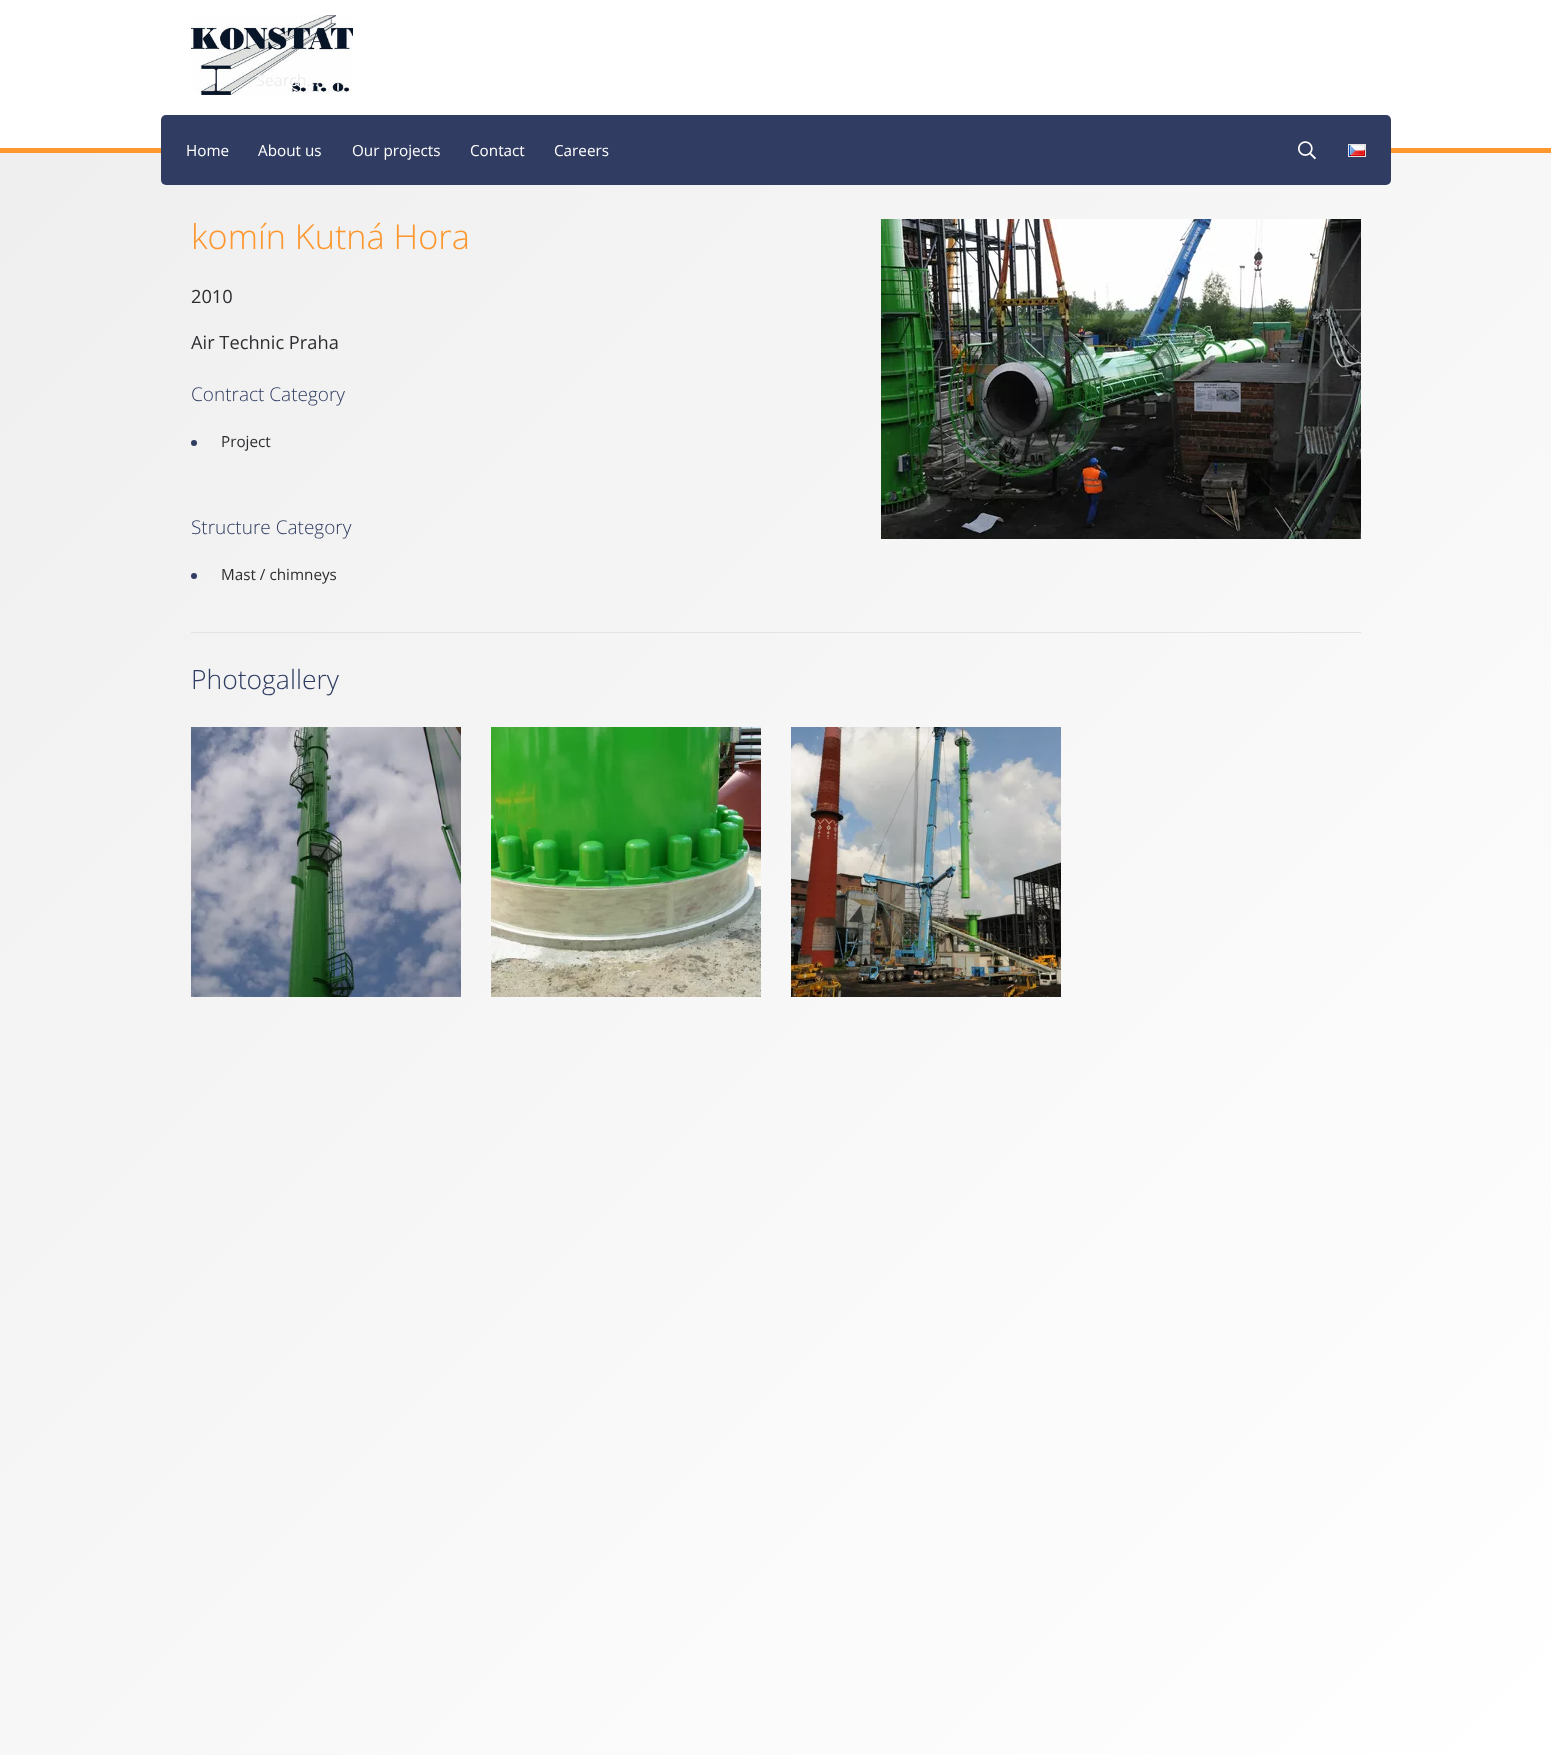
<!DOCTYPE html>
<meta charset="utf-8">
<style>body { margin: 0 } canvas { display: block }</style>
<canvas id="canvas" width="1551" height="1755"></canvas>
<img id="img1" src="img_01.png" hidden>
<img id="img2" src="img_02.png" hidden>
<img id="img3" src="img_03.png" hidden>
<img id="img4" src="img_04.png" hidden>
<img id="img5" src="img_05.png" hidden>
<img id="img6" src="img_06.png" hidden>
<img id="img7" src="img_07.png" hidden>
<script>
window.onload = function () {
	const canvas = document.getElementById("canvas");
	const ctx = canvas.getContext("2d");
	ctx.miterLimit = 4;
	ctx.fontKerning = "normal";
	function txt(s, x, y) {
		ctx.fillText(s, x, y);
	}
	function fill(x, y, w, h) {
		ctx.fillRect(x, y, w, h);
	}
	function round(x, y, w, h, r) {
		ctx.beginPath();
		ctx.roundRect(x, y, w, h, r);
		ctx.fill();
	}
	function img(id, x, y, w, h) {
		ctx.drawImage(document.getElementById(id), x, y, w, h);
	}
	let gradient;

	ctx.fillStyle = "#FFFFFF";
	fill(0, 0, 1551, 1755);
	img("img1", 191, 15, 162, 80);
	ctx.fillStyle = "#FD972E";
	fill(0, 148, 1551, 5);
	gradient = ctx.createLinearGradient(-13, 166, 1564, 1742);
	gradient.addColorStop(0, "#EFEFEF");
	gradient.addColorStop(1, "#FFFFFF");
	ctx.fillStyle = gradient;
	fill(0, 153, 1551, 1602);
	ctx.fillStyle = "#303C61";
	round(161, 115, 1230, 70, 5);
	img("img2", 1298, 141, 18, 19);
	ctx.strokeStyle = "#E3E3E3";
	ctx.strokeRect(1348.5, 144.5, 17, 12);
	img("img3", 1349, 145, 16, 11);
	img("img4", 881, 219, 480, 320);
	ctx.beginPath();
	ctx.arc(194, 443, 3, 0, Math.PI * 2);
	ctx.fill();
	ctx.beginPath();
	ctx.arc(194, 576, 3, 0, Math.PI * 2);
	ctx.fill();
	ctx.fillStyle = "#E3E3E3";
	fill(191, 632, 1170, 1);
	img("img5", 191, 727, 270, 270);
	img("img6", 491, 727, 270, 270);
	img("img7", 791, 727, 270, 270);
	ctx.font = "16px Open Sans";
	ctx.fillStyle = "#EDEEEF";
	txt("Search...", 256, 86);
	ctx.font = "15.25px Open Sans";
	ctx.fillStyle = "#FFFFFF";
	txt("Home", 186, 156);
	txt("About us", 258, 156);
	txt("Our projects", 352, 156);
	txt("Contact", 470, 156);
	txt("Careers", 554, 156);
	ctx.font = "300 34.25px Open Sans";
	ctx.fillStyle = "#FD972E";
	txt("komín Kutná Hora", 191, 249);
	ctx.font = "18.25px Open Sans";
	ctx.fillStyle = "#2D2E31";
	txt("2010", 191, 303);
	txt("Air Technic Praha", 191, 349);
	ctx.font = "300 19px Open Sans";
	ctx.fillStyle = "#303C61";
	txt("Contract Category", 191, 401);
	ctx.font = "15.25px Open Sans";
	ctx.fillStyle = "#2D2E31";
	txt("Project", 221, 447);
	ctx.font = "300 19px Open Sans";
	ctx.fillStyle = "#303C61";
	txt("Structure Category", 191, 534);
	ctx.font = "15.25px Open Sans";
	ctx.fillStyle = "#2D2E31";
	txt("Mast / chimneys", 221, 580);
	ctx.font = "300 26.5px Open Sans";
	ctx.fillStyle = "#303C61";
	txt("Photogallery", 191, 689);
};
</script>
